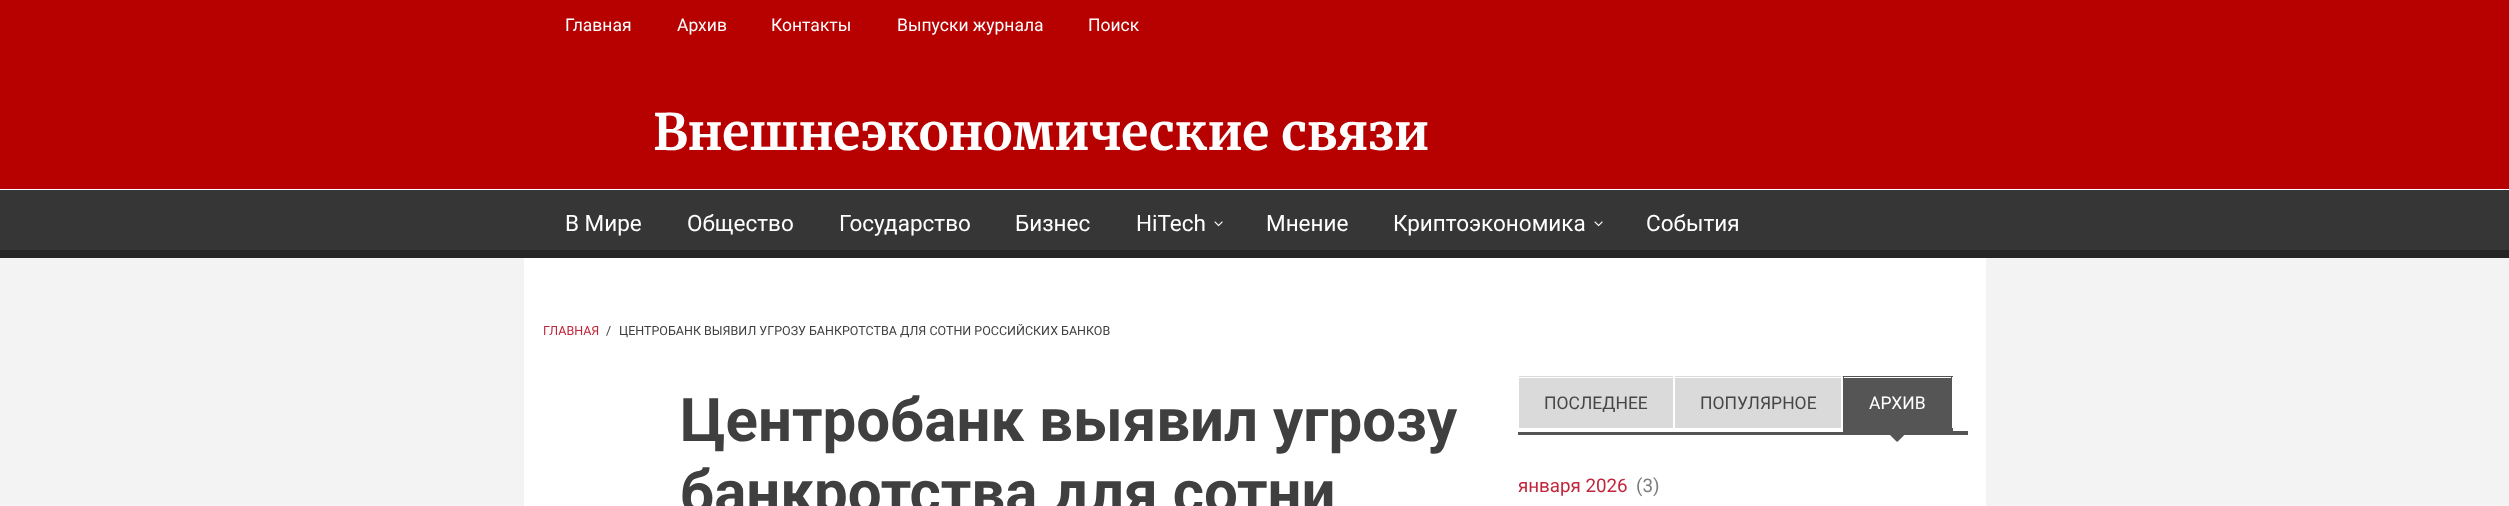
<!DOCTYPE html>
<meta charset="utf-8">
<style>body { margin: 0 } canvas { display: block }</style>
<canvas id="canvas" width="2509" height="506"></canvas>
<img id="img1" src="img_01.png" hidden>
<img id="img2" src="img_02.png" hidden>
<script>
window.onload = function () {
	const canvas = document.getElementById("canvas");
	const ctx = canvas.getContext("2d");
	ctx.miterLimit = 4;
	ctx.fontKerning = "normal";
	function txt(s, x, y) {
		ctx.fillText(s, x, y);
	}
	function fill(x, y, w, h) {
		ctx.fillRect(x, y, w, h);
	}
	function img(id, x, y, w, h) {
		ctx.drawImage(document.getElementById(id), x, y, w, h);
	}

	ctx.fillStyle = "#F3F3F3";
	fill(0, 0, 2509, 506);
	ctx.fillStyle = "#B70000";
	fill(0, 0, 2509, 189);
	ctx.fillStyle = "#FFFFFF";
	fill(0, 189, 2509, 1);
	ctx.fillStyle = "#363636";
	fill(0, 190, 2509, 60);
	ctx.fillStyle = "#252525";
	fill(0, 250, 2509, 8);
	img("img1", 1214, 221, 9, 6);
	img("img1", 1594, 221, 9, 6);
	ctx.fillStyle = "#FFFFFF";
	fill(524, 258, 1462, 248);
	ctx.fillStyle = "#555555";
	fill(1518, 431, 450, 4);
	ctx.fillStyle = "#DADADA";
	fill(1519, 378, 154, 50);
	fill(1518, 376, 325, 1);
	ctx.fillStyle = "#FFFFFF";
	fill(1673, 376, 2, 1);
	fill(1518, 431, 325, 1);
	fill(1518, 376, 1, 1);
	ctx.fillStyle = "#DADADA";
	fill(1675, 378, 166, 50);
	ctx.fillStyle = "#FFFFFF";
	fill(1841, 376, 1, 1);
	ctx.fillStyle = "#555555";
	fill(1844, 378, 107, 50);
	fill(1843, 376, 110, 1);
	fill(1951, 376, 1, 55);
	fill(1843, 428, 110, 3);
	fill(1843, 376, 1, 55);
	img("img2", 1890, 435, 14, 7);
	ctx.font = "17.5px Roboto";
	ctx.fillStyle = "#FFFFFF";
	txt("Главная", 565, 31);
	txt("Архив", 677, 31);
	txt("Контакты", 771, 31);
	txt("Выпуски журнала", 897, 31);
	txt("Поиск", 1088, 31);
	ctx.font = "bold 50px Merriweather";
	txt("Внешнеэкономические связи", 653, 150);
	ctx.font = "22.5px Roboto";
	txt("В Мире", 565, 231);
	txt("Общество", 687, 231);
	txt("Государство", 839, 231);
	txt("Бизнес", 1015, 231);
	txt("HiTech", 1136, 231);
	txt("Мнение", 1266, 231);
	txt("Криптоэкономика", 1393, 231);
	txt("События", 1646, 231);
	ctx.font = "12.5px Roboto";
	ctx.fillStyle = "#C0273C";
	txt("ГЛАВНАЯ", 543, 335);
	ctx.fillStyle = "#3F3F3F";
	txt("/", 606, 335);
	txt("ЦЕНТРОБАНК ВЫЯВИЛ УГРОЗУ БАНКРОТСТВА ДЛЯ СОТНИ РОССИЙСКИХ БАНКОВ", 619, 335);
	ctx.font = "bold 60px Roboto";
	txt("Центробанк выявил угрозу", 680, 441);
	txt("банкротства для сотни", 680, 513);
	ctx.font = "17.5px Roboto";
	ctx.fillStyle = "#464646";
	txt("ПОСЛЕДНЕЕ", 1544, 409);
	txt("ПОПУЛЯРНОЕ", 1700, 409);
	ctx.fillStyle = "#FFFFFF";
	txt("АРХИВ", 1869, 409);
	ctx.font = "18.75px Roboto";
	ctx.fillStyle = "#C0273C";
	txt("января 2026", 1518, 492);
	ctx.fillStyle = "#7D7D7D";
	txt("(3)", 1636, 492);
};
</script>
